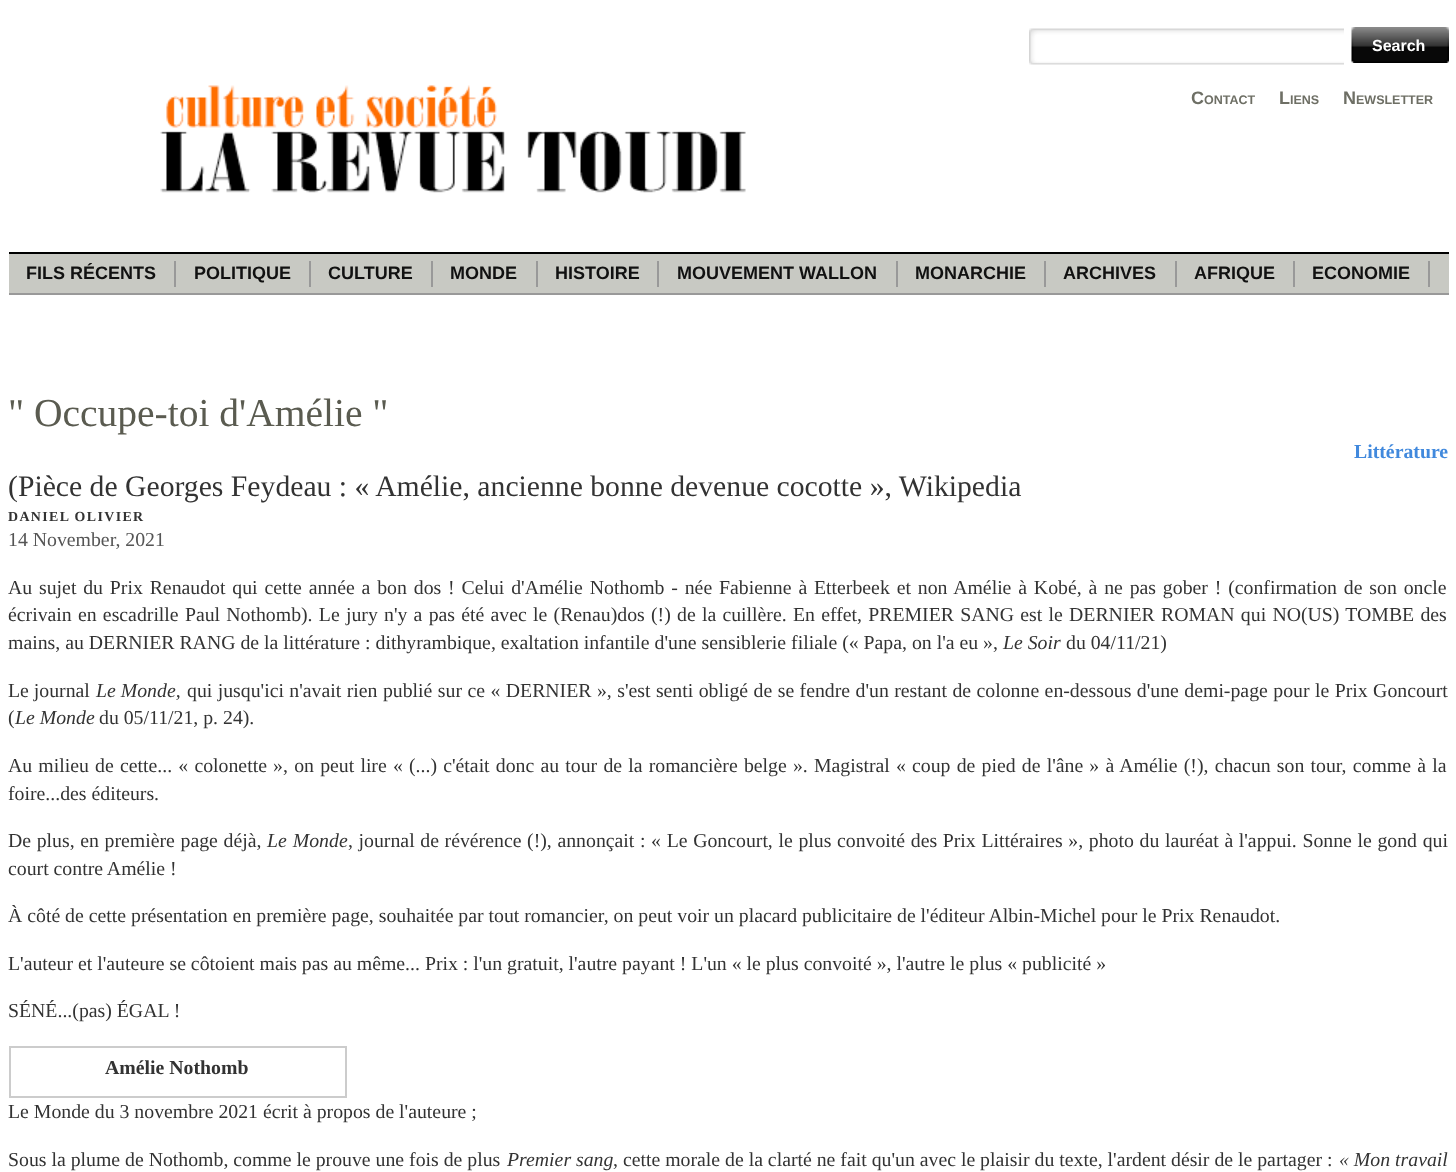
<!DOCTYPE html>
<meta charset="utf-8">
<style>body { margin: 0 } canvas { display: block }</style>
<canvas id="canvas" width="1456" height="1172"></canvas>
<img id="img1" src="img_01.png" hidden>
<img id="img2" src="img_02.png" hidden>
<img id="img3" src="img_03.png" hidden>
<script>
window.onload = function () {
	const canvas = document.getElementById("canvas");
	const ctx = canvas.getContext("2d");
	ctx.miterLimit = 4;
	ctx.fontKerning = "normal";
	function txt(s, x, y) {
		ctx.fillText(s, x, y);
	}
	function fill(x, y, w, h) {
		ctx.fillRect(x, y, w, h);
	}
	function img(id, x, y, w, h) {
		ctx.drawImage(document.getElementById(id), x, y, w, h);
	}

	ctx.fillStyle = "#FFFFFF";
	fill(0, 0, 1456, 1172);
	img("img1", 1029, 28, 315, 37);
	img("img2", 1351, 27, 98, 36);
	img("img3", 160, 85, 586, 108);
	ctx.fillStyle = "#999999";
	fill(9, 293, 1440, 2);
	ctx.fillStyle = "#C8C9C3";
	fill(9, 254, 1440, 39);
	ctx.fillStyle = "#000000";
	fill(9, 252, 1440, 2);
	ctx.fillStyle = "#999999";
	fill(174, 261, 2, 26);
	fill(309, 261, 2, 26);
	fill(431, 261, 2, 26);
	fill(536, 261, 2, 26);
	fill(657, 261, 2, 26);
	fill(896, 261, 2, 26);
	fill(1044, 261, 2, 26);
	fill(1175, 261, 2, 26);
	fill(1293, 261, 2, 26);
	fill(1428, 261, 2, 26);
	ctx.strokeStyle = "#CCCCCC";
	ctx.lineWidth = 2;
	ctx.strokeRect(10, 1047, 336, 50);
	ctx.font = "bold 16px Liberation Sans";
	ctx.fillStyle = "#FFFFFF";
	txt("Search", 1372, 51);
	ctx.font = "bold 18px Liberation Sans";
	ctx.fillStyle = "#6E6F65";
	txt("C", 1191, 104);
	ctx.font = "bold 12.5px Liberation Sans";
	txt("ONTACT", 1204, 104);
	ctx.font = "bold 18px Liberation Sans";
	txt("L", 1279, 104);
	ctx.font = "bold 12.5px Liberation Sans";
	txt("IENS", 1290, 104);
	ctx.font = "bold 18px Liberation Sans";
	txt("N", 1343, 104);
	ctx.font = "bold 12.5px Liberation Sans";
	txt("EWSLETTER", 1356, 104);
	ctx.font = "bold 18px Liberation Sans";
	ctx.fillStyle = "#111111";
	txt("FILS RÉCENTS", 26, 279);
	txt("POLITIQUE", 194, 279);
	txt("CULTURE", 328, 279);
	txt("MONDE", 450, 279);
	txt("HISTOIRE", 555, 279);
	txt("MOUVEMENT WALLON", 677, 279);
	txt("MONARCHIE", 915, 279);
	txt("ARCHIVES", 1063, 279);
	txt("AFRIQUE", 1194, 279);
	txt("ECONOMIE", 1312, 279);
	ctx.font = "39.5px Liberation Serif";
	ctx.fillStyle = "#5A5B50";
	txt("\" Occupe-toi d'Amélie \"", 8, 426);
	ctx.font = "bold 19.8px Liberation Serif";
	ctx.fillStyle = "#4189DD";
	txt("Littérature", 1354, 458);
	ctx.font = "29.7px Liberation Serif";
	ctx.fillStyle = "#333333";
	txt("(Pièce de Georges Feydeau : « Amélie, ancienne bonne devenue cocotte », Wikipedia", 8, 496);
	ctx.letterSpacing = "1.4px";
	ctx.font = "bold 13.9px Liberation Serif";
	txt("DANIEL OLIVIER", 8, 521);
	ctx.letterSpacing = "0px";
	ctx.font = "19.8px Liberation Serif";
	ctx.fillStyle = "#555555";
	txt("14 November, 2021", 8, 546);
	ctx.wordSpacing = "1.9px";
	ctx.fillStyle = "#333333";
	txt("Au sujet du Prix Renaudot qui cette année a bon dos ! Celui d'Amélie Nothomb - née Fabienne à Etterbeek et non Amélie à Kobé, à ne pas gober ! (confirmation de son oncle", 8, 594);
	ctx.wordSpacing = "1.3px";
	txt("écrivain en escadrille Paul Nothomb). Le jury n'y a pas été avec le (Renau)dos (!) de la cuillère. En effet, PREMIER SANG est le DERNIER ROMAN qui NO(US) TOMBE des", 8, 621);
	ctx.wordSpacing = "0px";
	txt("mains, au DERNIER RANG de la littérature : dithyrambique, exaltation infantile d'une sensiblerie filiale (« Papa, on l'a eu »,", 8, 649);
	ctx.font = "italic 19.8px Liberation Serif";
	txt("Le Soir", 1003, 649);
	ctx.font = "19.8px Liberation Serif";
	txt("du 04/11/21)", 1066, 649);
	txt("Le journal", 8, 697);
	ctx.font = "italic 19.8px Liberation Serif";
	txt("Le Monde,", 96, 697);
	ctx.wordSpacing = "0.5px";
	ctx.font = "19.8px Liberation Serif";
	txt("qui jusqu'ici n'avait rien publié sur ce « DERNIER », s'est senti obligé de se fendre d'un restant de colonne en-dessous d'une demi-page pour le Prix Goncourt", 187, 697);
	ctx.wordSpacing = "0px";
	txt("(", 8, 724);
	ctx.font = "italic 19.8px Liberation Serif";
	txt("Le Monde", 15, 724);
	ctx.font = "19.8px Liberation Serif";
	txt("du 05/11/21, p. 24).", 99, 724);
	ctx.wordSpacing = "1.25px";
	txt("Au milieu de cette... « colonette », on peut lire « (...) c'était donc au tour de la romancière belge ». Magistral « coup de pied de l'âne » à Amélie (!), chacun son tour, comme à la", 8, 772);
	ctx.wordSpacing = "0px";
	txt("foire...des éditeurs.", 8, 800);
	ctx.wordSpacing = "0.7px";
	txt("De plus, en première page déjà,", 8, 847);
	ctx.wordSpacing = "1px";
	ctx.font = "italic 19.8px Liberation Serif";
	txt("Le Monde", 267, 847);
	ctx.wordSpacing = "0.7px";
	ctx.font = "19.8px Liberation Serif";
	txt(", journal de révérence (!), annonçait : « Le Goncourt, le plus convoité des Prix Littéraires », photo du lauréat à l'appui. Sonne le gond qui", 348, 847);
	ctx.wordSpacing = "0px";
	txt("court contre Amélie !", 8, 875);
	txt("À côté de cette présentation en première page, souhaitée par tout romancier, on peut voir un placard publicitaire de l'éditeur Albin-Michel pour le Prix Renaudot.", 8, 922);
	txt("L'auteur et l'auteure se côtoient mais pas au même... Prix : l'un gratuit, l'autre payant ! L'un « le plus convoité », l'autre le plus « publicité »", 8, 970);
	txt("SÉNÉ...(pas) ÉGAL !", 8, 1017);
	ctx.font = "bold 19.8px Liberation Serif";
	txt("Amélie Nothomb", 105, 1074);
	ctx.font = "19.8px Liberation Serif";
	txt("Le Monde du 3 novembre 2021 écrit à propos de l'auteure ;", 8, 1118);
	txt("Sous la plume de Nothomb, comme le prouve une fois de plus", 8, 1166);
	ctx.font = "italic 19.8px Liberation Serif";
	txt("Premier sang", 507, 1166);
	ctx.font = "19.8px Liberation Serif";
	txt(", cette morale de la clarté ne fait qu'un avec le plaisir du texte, l'ardent désir de le partager :", 613, 1166);
	ctx.font = "italic 19.8px Liberation Serif";
	txt("« Mon travail", 1339, 1166);
};
</script>
